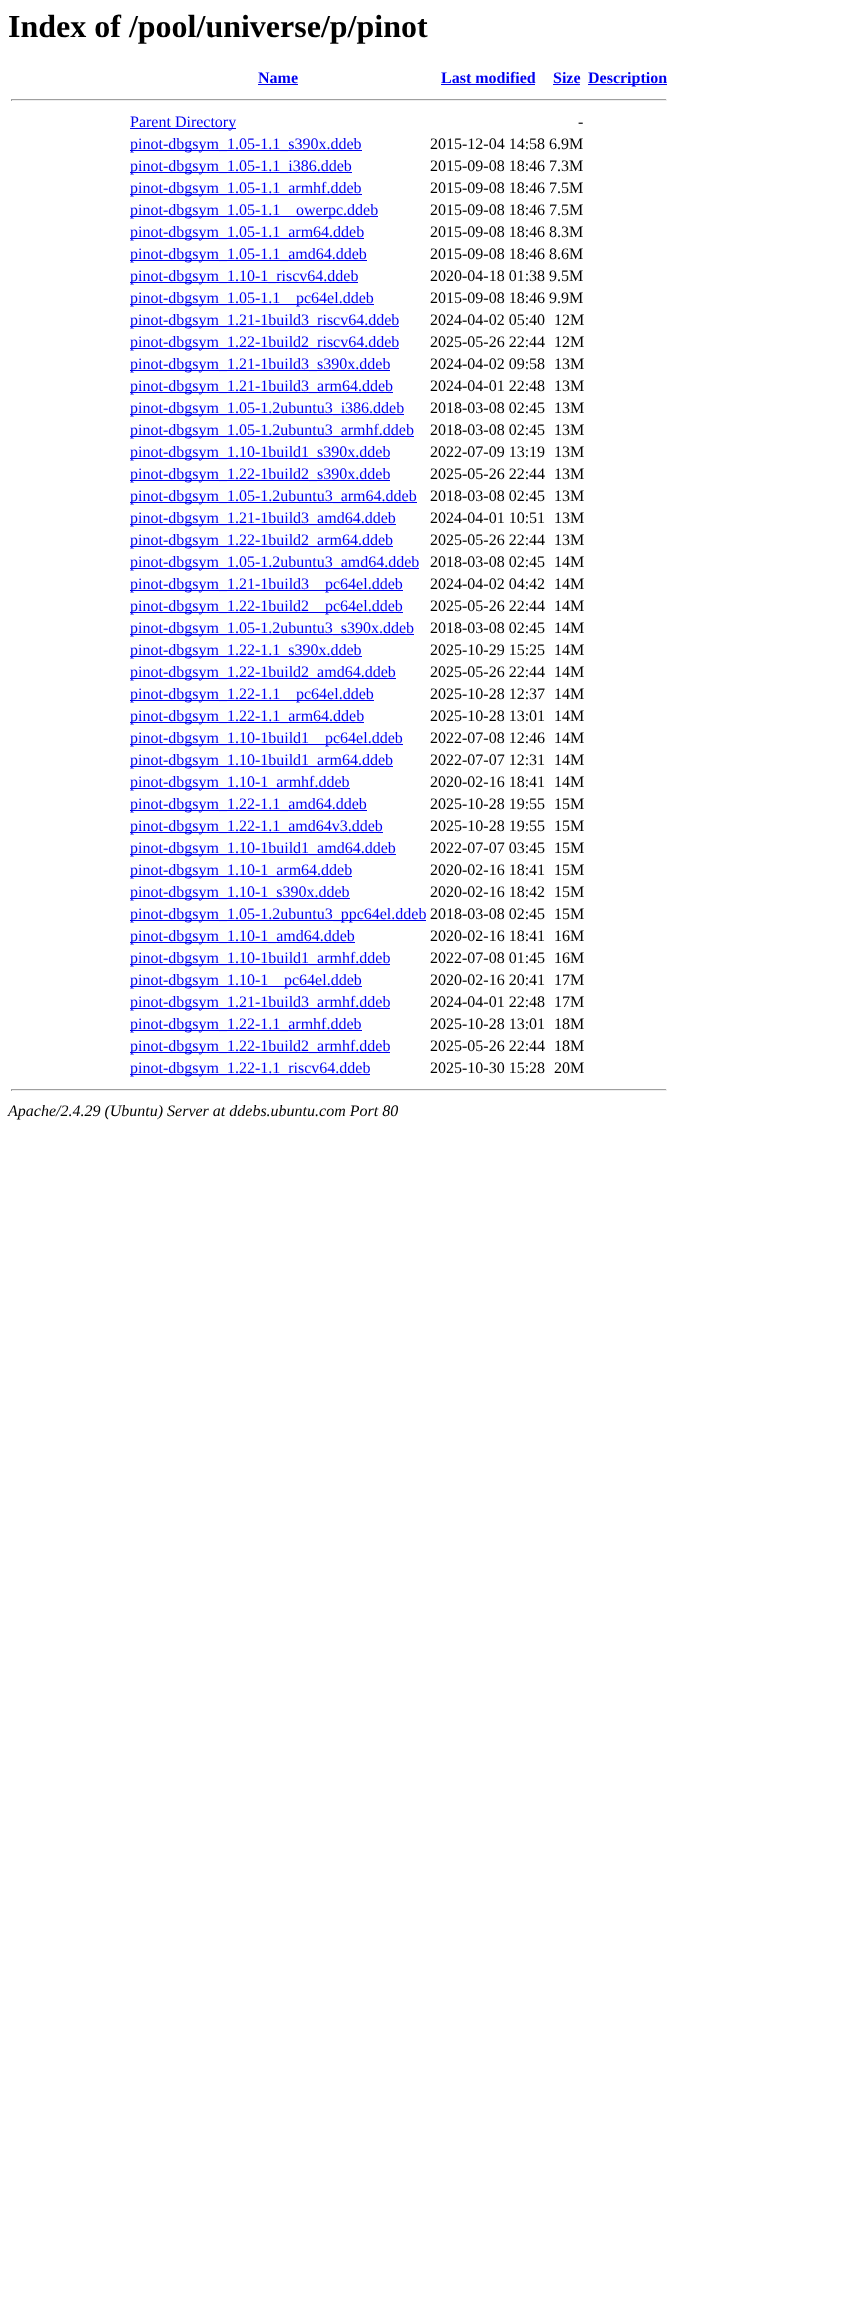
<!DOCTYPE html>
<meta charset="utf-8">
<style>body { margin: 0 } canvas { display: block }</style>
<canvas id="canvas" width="852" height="2316"></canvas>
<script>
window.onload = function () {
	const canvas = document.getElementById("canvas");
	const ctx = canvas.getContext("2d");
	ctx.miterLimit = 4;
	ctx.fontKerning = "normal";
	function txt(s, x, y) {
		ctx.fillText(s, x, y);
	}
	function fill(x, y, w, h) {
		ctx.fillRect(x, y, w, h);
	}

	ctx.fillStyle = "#FFFFFF";
	fill(0, 0, 852, 2316);
	ctx.fillStyle = "#0000EE";
	fill(258, 84, 40, 1);
	fill(441, 84, 94, 1);
	fill(553, 84, 27, 1);
	fill(588, 84, 79, 1);
	ctx.fillStyle = "#9F9F9F";
	fill(11, 99, 656, 1);
	ctx.fillStyle = "#EEEEEE";
	fill(666, 99, 1, 2);
	fill(11, 100, 656, 1);
	ctx.fillStyle = "#9F9F9F";
	fill(11, 99, 1, 2);
	ctx.fillStyle = "#0000EE";
	fill(130, 128, 106, 1);
	fill(130, 150, 232, 1);
	fill(130, 172, 222, 1);
	fill(130, 194, 232, 1);
	fill(130, 216, 248, 1);
	fill(130, 238, 234, 1);
	fill(130, 260, 237, 1);
	fill(130, 282, 228, 1);
	fill(130, 304, 244, 1);
	fill(130, 326, 269, 1);
	fill(130, 348, 269, 1);
	fill(130, 370, 260, 1);
	fill(130, 392, 263, 1);
	fill(130, 414, 274, 1);
	fill(130, 436, 284, 1);
	fill(130, 458, 260, 1);
	fill(130, 480, 260, 1);
	fill(130, 502, 287, 1);
	fill(130, 524, 266, 1);
	fill(130, 546, 263, 1);
	fill(130, 568, 289, 1);
	fill(130, 590, 273, 1);
	fill(130, 612, 273, 1);
	fill(130, 634, 284, 1);
	fill(130, 656, 232, 1);
	fill(130, 678, 266, 1);
	fill(130, 700, 244, 1);
	fill(130, 722, 234, 1);
	fill(130, 744, 273, 1);
	fill(130, 766, 263, 1);
	fill(130, 788, 220, 1);
	fill(130, 810, 237, 1);
	fill(130, 832, 253, 1);
	fill(130, 854, 266, 1);
	fill(130, 876, 222, 1);
	fill(130, 898, 220, 1);
	fill(130, 920, 296, 1);
	fill(130, 942, 225, 1);
	fill(130, 964, 260, 1);
	fill(130, 986, 232, 1);
	fill(130, 1008, 260, 1);
	fill(130, 1030, 232, 1);
	fill(130, 1052, 260, 1);
	fill(130, 1074, 240, 1);
	ctx.fillStyle = "#9F9F9F";
	fill(11, 1089, 656, 1);
	ctx.fillStyle = "#EEEEEE";
	fill(666, 1089, 1, 2);
	fill(11, 1090, 656, 1);
	ctx.fillStyle = "#9F9F9F";
	fill(11, 1089, 1, 2);
	ctx.font = "bold 32px Liberation Serif";
	ctx.fillStyle = "#000000";
	txt("Index of /pool/universe/p/pinot", 8, 37);
	ctx.font = "bold 16px Liberation Serif";
	ctx.fillStyle = "#0000EE";
	txt("Name", 258, 83);
	txt("Last modified", 441, 83);
	txt("Size", 553, 83);
	txt("Description", 588, 83);
	ctx.font = "16px Liberation Serif";
	txt("Parent Directory", 130, 127);
	ctx.fillStyle = "#000000";
	txt("-", 578, 127);
	ctx.fillStyle = "#0000EE";
	txt("pinot-dbgsym_1.05-1.1_s390x.ddeb", 130, 149);
	ctx.fillStyle = "#000000";
	txt("2015-12-04 14:58 6.9M", 430, 149);
	ctx.fillStyle = "#0000EE";
	txt("pinot-dbgsym_1.05-1.1_i386.ddeb", 130, 171);
	ctx.fillStyle = "#000000";
	txt("2015-09-08 18:46 7.3M", 430, 171);
	ctx.fillStyle = "#0000EE";
	txt("pinot-dbgsym_1.05-1.1_armhf.ddeb", 130, 193);
	ctx.fillStyle = "#000000";
	txt("2015-09-08 18:46 7.5M", 430, 193);
	ctx.fillStyle = "#0000EE";
	txt("pinot-dbgsym_1.05-1.1", 130, 215);
	txt("owerpc.ddeb", 296, 215);
	ctx.fillStyle = "#000000";
	txt("2015-09-08 18:46 7.5M", 430, 215);
	ctx.fillStyle = "#0000EE";
	txt("pinot-dbgsym_1.05-1.1_arm64.ddeb", 130, 237);
	ctx.fillStyle = "#000000";
	txt("2015-09-08 18:46 8.3M", 430, 237);
	ctx.fillStyle = "#0000EE";
	txt("pinot-dbgsym_1.05-1.1_amd64.ddeb", 130, 259);
	ctx.fillStyle = "#000000";
	txt("2015-09-08 18:46 8.6M", 430, 259);
	ctx.fillStyle = "#0000EE";
	txt("pinot-dbgsym_1.10-1_riscv64.ddeb", 130, 281);
	ctx.fillStyle = "#000000";
	txt("2020-04-18 01:38 9.5M", 430, 281);
	ctx.fillStyle = "#0000EE";
	txt("pinot-dbgsym_1.05-1.1", 130, 303);
	txt("pc64el.ddeb", 296, 303);
	ctx.fillStyle = "#000000";
	txt("2015-09-08 18:46 9.9M", 430, 303);
	ctx.fillStyle = "#0000EE";
	txt("pinot-dbgsym_1.21-1build3_riscv64.ddeb", 130, 325);
	ctx.fillStyle = "#000000";
	txt("2024-04-02 05:40", 430, 325);
	txt("12M", 554, 325);
	ctx.fillStyle = "#0000EE";
	txt("pinot-dbgsym_1.22-1build2_riscv64.ddeb", 130, 347);
	ctx.fillStyle = "#000000";
	txt("2025-05-26 22:44", 430, 347);
	txt("12M", 554, 347);
	ctx.fillStyle = "#0000EE";
	txt("pinot-dbgsym_1.21-1build3_s390x.ddeb", 130, 369);
	ctx.fillStyle = "#000000";
	txt("2024-04-02 09:58", 430, 369);
	txt("13M", 554, 369);
	ctx.fillStyle = "#0000EE";
	txt("pinot-dbgsym_1.21-1build3_arm64.ddeb", 130, 391);
	ctx.fillStyle = "#000000";
	txt("2024-04-01 22:48", 430, 391);
	txt("13M", 554, 391);
	ctx.fillStyle = "#0000EE";
	txt("pinot-dbgsym_1.05-1.2ubuntu3_i386.ddeb", 130, 413);
	ctx.fillStyle = "#000000";
	txt("2018-03-08 02:45", 430, 413);
	txt("13M", 554, 413);
	ctx.fillStyle = "#0000EE";
	txt("pinot-dbgsym_1.05-1.2ubuntu3_armhf.ddeb", 130, 435);
	ctx.fillStyle = "#000000";
	txt("2018-03-08 02:45", 430, 435);
	txt("13M", 554, 435);
	ctx.fillStyle = "#0000EE";
	txt("pinot-dbgsym_1.10-1build1_s390x.ddeb", 130, 457);
	ctx.fillStyle = "#000000";
	txt("2022-07-09 13:19", 430, 457);
	txt("13M", 554, 457);
	ctx.fillStyle = "#0000EE";
	txt("pinot-dbgsym_1.22-1build2_s390x.ddeb", 130, 479);
	ctx.fillStyle = "#000000";
	txt("2025-05-26 22:44", 430, 479);
	txt("13M", 554, 479);
	ctx.fillStyle = "#0000EE";
	txt("pinot-dbgsym_1.05-1.2ubuntu3_arm64.ddeb", 130, 501);
	ctx.fillStyle = "#000000";
	txt("2018-03-08 02:45", 430, 501);
	txt("13M", 554, 501);
	ctx.fillStyle = "#0000EE";
	txt("pinot-dbgsym_1.21-1build3_amd64.ddeb", 130, 523);
	ctx.fillStyle = "#000000";
	txt("2024-04-01 10:51", 430, 523);
	txt("13M", 554, 523);
	ctx.fillStyle = "#0000EE";
	txt("pinot-dbgsym_1.22-1build2_arm64.ddeb", 130, 545);
	ctx.fillStyle = "#000000";
	txt("2025-05-26 22:44", 430, 545);
	txt("13M", 554, 545);
	ctx.fillStyle = "#0000EE";
	txt("pinot-dbgsym_1.05-1.2ubuntu3_amd64.ddeb", 130, 567);
	ctx.fillStyle = "#000000";
	txt("2018-03-08 02:45", 430, 567);
	txt("14M", 554, 567);
	ctx.fillStyle = "#0000EE";
	txt("pinot-dbgsym_1.21-1build3", 130, 589);
	txt("pc64el.ddeb", 325, 589);
	ctx.fillStyle = "#000000";
	txt("2024-04-02 04:42", 430, 589);
	txt("14M", 554, 589);
	ctx.fillStyle = "#0000EE";
	txt("pinot-dbgsym_1.22-1build2", 130, 611);
	txt("pc64el.ddeb", 325, 611);
	ctx.fillStyle = "#000000";
	txt("2025-05-26 22:44", 430, 611);
	txt("14M", 554, 611);
	ctx.fillStyle = "#0000EE";
	txt("pinot-dbgsym_1.05-1.2ubuntu3_s390x.ddeb", 130, 633);
	ctx.fillStyle = "#000000";
	txt("2018-03-08 02:45", 430, 633);
	txt("14M", 554, 633);
	ctx.fillStyle = "#0000EE";
	txt("pinot-dbgsym_1.22-1.1_s390x.ddeb", 130, 655);
	ctx.fillStyle = "#000000";
	txt("2025-10-29 15:25", 430, 655);
	txt("14M", 554, 655);
	ctx.fillStyle = "#0000EE";
	txt("pinot-dbgsym_1.22-1build2_amd64.ddeb", 130, 677);
	ctx.fillStyle = "#000000";
	txt("2025-05-26 22:44", 430, 677);
	txt("14M", 554, 677);
	ctx.fillStyle = "#0000EE";
	txt("pinot-dbgsym_1.22-1.1", 130, 699);
	txt("pc64el.ddeb", 296, 699);
	ctx.fillStyle = "#000000";
	txt("2025-10-28 12:37", 430, 699);
	txt("14M", 554, 699);
	ctx.fillStyle = "#0000EE";
	txt("pinot-dbgsym_1.22-1.1_arm64.ddeb", 130, 721);
	ctx.fillStyle = "#000000";
	txt("2025-10-28 13:01", 430, 721);
	txt("14M", 554, 721);
	ctx.fillStyle = "#0000EE";
	txt("pinot-dbgsym_1.10-1build1", 130, 743);
	txt("pc64el.ddeb", 325, 743);
	ctx.fillStyle = "#000000";
	txt("2022-07-08 12:46", 430, 743);
	txt("14M", 554, 743);
	ctx.fillStyle = "#0000EE";
	txt("pinot-dbgsym_1.10-1build1_arm64.ddeb", 130, 765);
	ctx.fillStyle = "#000000";
	txt("2022-07-07 12:31", 430, 765);
	txt("14M", 554, 765);
	ctx.fillStyle = "#0000EE";
	txt("pinot-dbgsym_1.10-1_armhf.ddeb", 130, 787);
	ctx.fillStyle = "#000000";
	txt("2020-02-16 18:41", 430, 787);
	txt("14M", 554, 787);
	ctx.fillStyle = "#0000EE";
	txt("pinot-dbgsym_1.22-1.1_amd64.ddeb", 130, 809);
	ctx.fillStyle = "#000000";
	txt("2025-10-28 19:55", 430, 809);
	txt("15M", 554, 809);
	ctx.fillStyle = "#0000EE";
	txt("pinot-dbgsym_1.22-1.1_amd64v3.ddeb", 130, 831);
	ctx.fillStyle = "#000000";
	txt("2025-10-28 19:55", 430, 831);
	txt("15M", 554, 831);
	ctx.fillStyle = "#0000EE";
	txt("pinot-dbgsym_1.10-1build1_amd64.ddeb", 130, 853);
	ctx.fillStyle = "#000000";
	txt("2022-07-07 03:45", 430, 853);
	txt("15M", 554, 853);
	ctx.fillStyle = "#0000EE";
	txt("pinot-dbgsym_1.10-1_arm64.ddeb", 130, 875);
	ctx.fillStyle = "#000000";
	txt("2020-02-16 18:41", 430, 875);
	txt("15M", 554, 875);
	ctx.fillStyle = "#0000EE";
	txt("pinot-dbgsym_1.10-1_s390x.ddeb", 130, 897);
	ctx.fillStyle = "#000000";
	txt("2020-02-16 18:42", 430, 897);
	txt("15M", 554, 897);
	ctx.fillStyle = "#0000EE";
	txt("pinot-dbgsym_1.05-1.2ubuntu3_ppc64el.ddeb", 130, 919);
	ctx.fillStyle = "#000000";
	txt("2018-03-08 02:45", 430, 919);
	txt("15M", 554, 919);
	ctx.fillStyle = "#0000EE";
	txt("pinot-dbgsym_1.10-1_amd64.ddeb", 130, 941);
	ctx.fillStyle = "#000000";
	txt("2020-02-16 18:41", 430, 941);
	txt("16M", 554, 941);
	ctx.fillStyle = "#0000EE";
	txt("pinot-dbgsym_1.10-1build1_armhf.ddeb", 130, 963);
	ctx.fillStyle = "#000000";
	txt("2022-07-08 01:45", 430, 963);
	txt("16M", 554, 963);
	ctx.fillStyle = "#0000EE";
	txt("pinot-dbgsym_1.10-1", 130, 985);
	txt("pc64el.ddeb", 284, 985);
	ctx.fillStyle = "#000000";
	txt("2020-02-16 20:41", 430, 985);
	txt("17M", 554, 985);
	ctx.fillStyle = "#0000EE";
	txt("pinot-dbgsym_1.21-1build3_armhf.ddeb", 130, 1007);
	ctx.fillStyle = "#000000";
	txt("2024-04-01 22:48", 430, 1007);
	txt("17M", 554, 1007);
	ctx.fillStyle = "#0000EE";
	txt("pinot-dbgsym_1.22-1.1_armhf.ddeb", 130, 1029);
	ctx.fillStyle = "#000000";
	txt("2025-10-28 13:01", 430, 1029);
	txt("18M", 554, 1029);
	ctx.fillStyle = "#0000EE";
	txt("pinot-dbgsym_1.22-1build2_armhf.ddeb", 130, 1051);
	ctx.fillStyle = "#000000";
	txt("2025-05-26 22:44", 430, 1051);
	txt("18M", 554, 1051);
	ctx.fillStyle = "#0000EE";
	txt("pinot-dbgsym_1.22-1.1_riscv64.ddeb", 130, 1073);
	ctx.fillStyle = "#000000";
	txt("2025-10-30 15:28", 430, 1073);
	txt("20M", 554, 1073);
	ctx.font = "italic 16px Liberation Serif";
	txt("Apache/2.4.29 (Ubuntu) Server at ddebs.ubuntu.com Port 80", 8, 1116);
};
</script>
